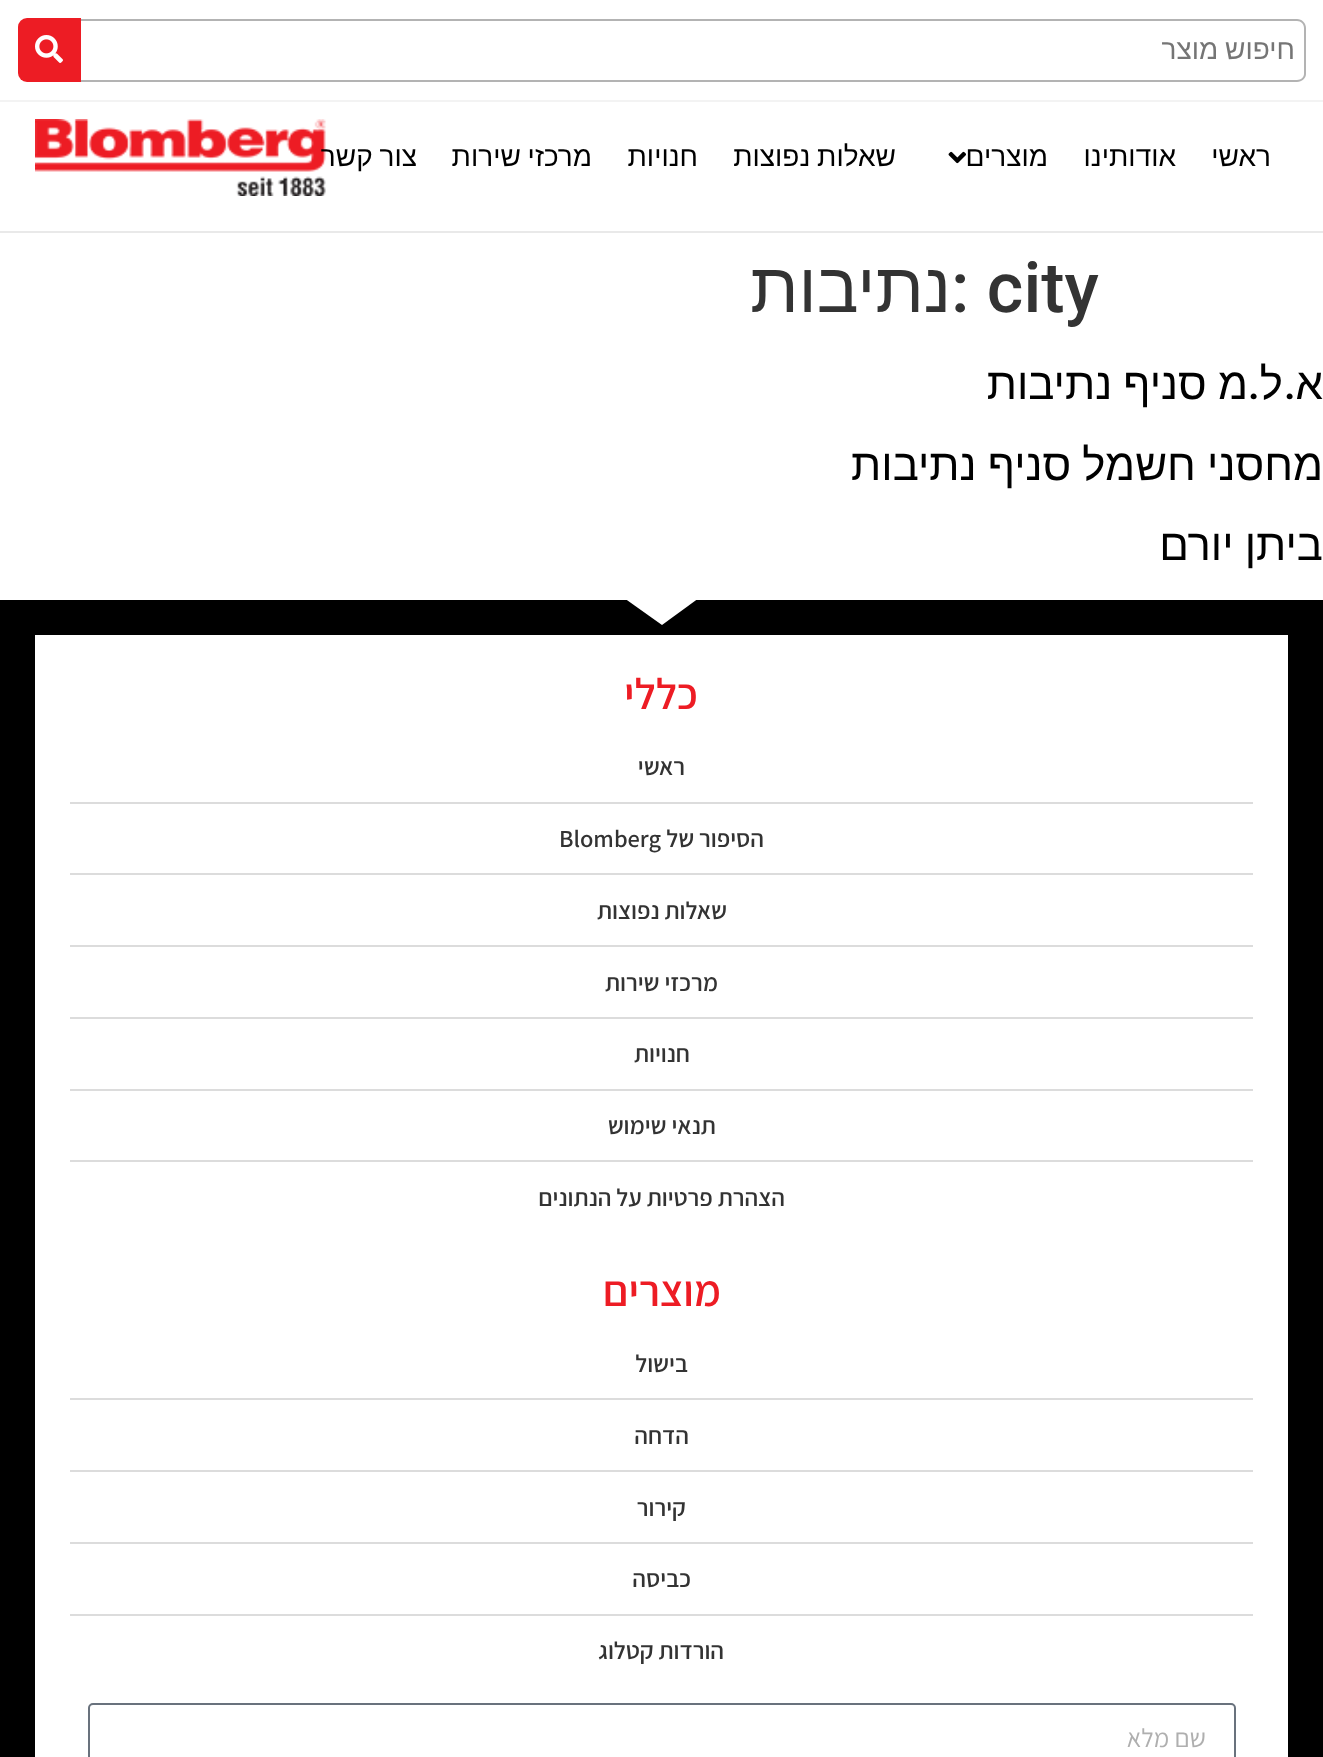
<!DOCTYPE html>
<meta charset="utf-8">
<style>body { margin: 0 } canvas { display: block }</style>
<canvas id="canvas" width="1323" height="1757"></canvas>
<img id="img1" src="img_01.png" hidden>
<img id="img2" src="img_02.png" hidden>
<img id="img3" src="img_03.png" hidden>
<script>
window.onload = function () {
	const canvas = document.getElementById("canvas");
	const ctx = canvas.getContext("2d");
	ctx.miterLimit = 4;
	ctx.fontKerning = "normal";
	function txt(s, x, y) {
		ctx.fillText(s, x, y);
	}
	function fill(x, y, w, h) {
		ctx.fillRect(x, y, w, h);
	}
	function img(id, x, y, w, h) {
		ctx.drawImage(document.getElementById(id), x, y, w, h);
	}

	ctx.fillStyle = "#FFFFFF";
	fill(0, 0, 1323, 1757);
	ctx.fillStyle = "#F3F3F3";
	fill(0, 100, 1323, 2);
	ctx.fillStyle = "#B3B3B3";
	ctx.beginPath();
	ctx.moveTo(80, 19);
	ctx.lineTo(1297, 19);
	ctx.bezierCurveTo(1302, 19, 1306, 23, 1306, 28);
	ctx.lineTo(1306, 74);
	ctx.bezierCurveTo(1306, 78, 1302, 82, 1297, 82);
	ctx.lineTo(80, 82);
	ctx.closePath();
	ctx.moveTo(80, 21);
	ctx.lineTo(1297, 21);
	ctx.bezierCurveTo(1301, 21, 1304, 24, 1304, 28);
	ctx.lineTo(1304, 74);
	ctx.bezierCurveTo(1304, 77, 1301, 80, 1297, 80);
	ctx.lineTo(80, 80);
	ctx.closePath();
	ctx.fill("evenodd");
	ctx.fillStyle = "#ED1C24";
	ctx.beginPath();
	ctx.roundRect(18, 18, 63, 64, [9, 0, 0, 9]);
	ctx.fill();
	img("img1", 35, 35, 28, 28);
	ctx.fillStyle = "#E9E9E9";
	fill(0, 231, 1323, 2);
	img("img2", 948, 151, 18, 13);
	img("img3", 35, 119, 291, 77);
	ctx.fillStyle = "#000000";
	fill(0, 600, 1323, 1157);
	ctx.save();
	ctx.beginPath();
	ctx.rect(0, 599, 1323, 26);
	ctx.clip();
	ctx.fillStyle = "#FFFFFF";
	ctx.beginPath();
	ctx.moveTo(662, 625);
	ctx.lineTo(624, 598);
	ctx.lineTo(699, 598);
	ctx.closePath();
	ctx.fill();
	ctx.restore();
	ctx.fillStyle = "#FFFFFF";
	fill(35, 635, 1253, 1122);
	ctx.fillStyle = "#DCDCDC";
	fill(70, 802, 1183, 2);
	fill(70, 873, 1183, 2);
	fill(70, 945, 1183, 2);
	fill(70, 1017, 1183, 2);
	fill(70, 1089, 1183, 2);
	fill(70, 1160, 1183, 2);
	fill(70, 1398, 1183, 2);
	fill(70, 1470, 1183, 2);
	fill(70, 1542, 1183, 2);
	fill(70, 1614, 1183, 2);
	ctx.beginPath();
	ctx.roundRect(89, 1704, 1146, 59, 4);
	ctx.strokeStyle = "#69727D";
	ctx.lineWidth = 2;
	ctx.stroke();
	ctx.wordSpacing = "-1px";
	ctx.direction = "rtl";
	ctx.font = "28px Liberation Sans";
	ctx.fillStyle = "#757575";
	txt("חיפוש מוצר", 1295, 59);
	ctx.wordSpacing = "0px";
	ctx.fillStyle = "#000000";
	txt("ראשי", 1271, 166);
	txt("אודותינו", 1176, 166);
	txt("מוצרים", 1048, 166);
	ctx.wordSpacing = "-1px";
	txt("שאלות נפוצות", 896, 166);
	ctx.wordSpacing = "0px";
	txt("חנויות", 698, 166);
	ctx.wordSpacing = "-1px";
	txt("מרכזי שירות", 592, 166);
	txt("צור קשר", 417, 166);
	ctx.wordSpacing = "0px";
	ctx.direction = "ltr";
	ctx.font = "500 70px Roboto";
	ctx.fillStyle = "#333333";
	txt(": city", 951, 312);
	ctx.direction = "rtl";
	ctx.font = "70px Liberation Sans";
	txt("נתיבות", 951, 312);
	ctx.font = "43.75px Liberation Sans";
	ctx.fillStyle = "#000000";
	txt("א", 1323, 399);
	ctx.font = "500 43.75px Roboto";
	txt(".", 1296, 399);
	ctx.font = "43.75px Liberation Sans";
	txt("ל", 1283, 399);
	ctx.font = "500 43.75px Roboto";
	txt(".", 1260, 399);
	ctx.wordSpacing = "-1px";
	ctx.font = "43.75px Liberation Sans";
	txt("מ סניף נתיבות", 1248, 399);
	txt("מחסני חשמל סניף נתיבות", 1323, 480);
	txt("ביתן יורם", 1323, 560);
	ctx.wordSpacing = "0px";
	ctx.font = "600 43.75px Assistant";
	ctx.fillStyle = "#ED1C24";
	txt("כללי", 698, 709);
	ctx.font = "600 24.5px Assistant";
	ctx.fillStyle = "#333333";
	txt("ראשי", 685, 775);
	txt("הסיפור של", 764, 847);
	ctx.direction = "ltr";
	txt("Blomberg", 559, 847);
	ctx.direction = "rtl";
	txt("שאלות נפוצות", 727, 919);
	txt("מרכזי שירות", 718, 991);
	txt("חנויות", 690, 1062);
	txt("תנאי שימוש", 716, 1134);
	txt("הצהרת פרטיות על הנתונים", 785, 1206);
	ctx.font = "600 43.75px Assistant";
	ctx.fillStyle = "#ED1C24";
	txt("מוצרים", 721, 1306);
	ctx.font = "600 24.5px Assistant";
	ctx.fillStyle = "#333333";
	txt("בישול", 688, 1372);
	txt("הדחה", 689, 1444);
	txt("קירור", 686, 1516);
	txt("כביסה", 691, 1587);
	txt("הורדות קטלוג", 724, 1659);
	ctx.font = "26px Assistant";
	ctx.fillStyle = "#AFAFAF";
	txt("שם מלא", 1206, 1747);
};
</script>
